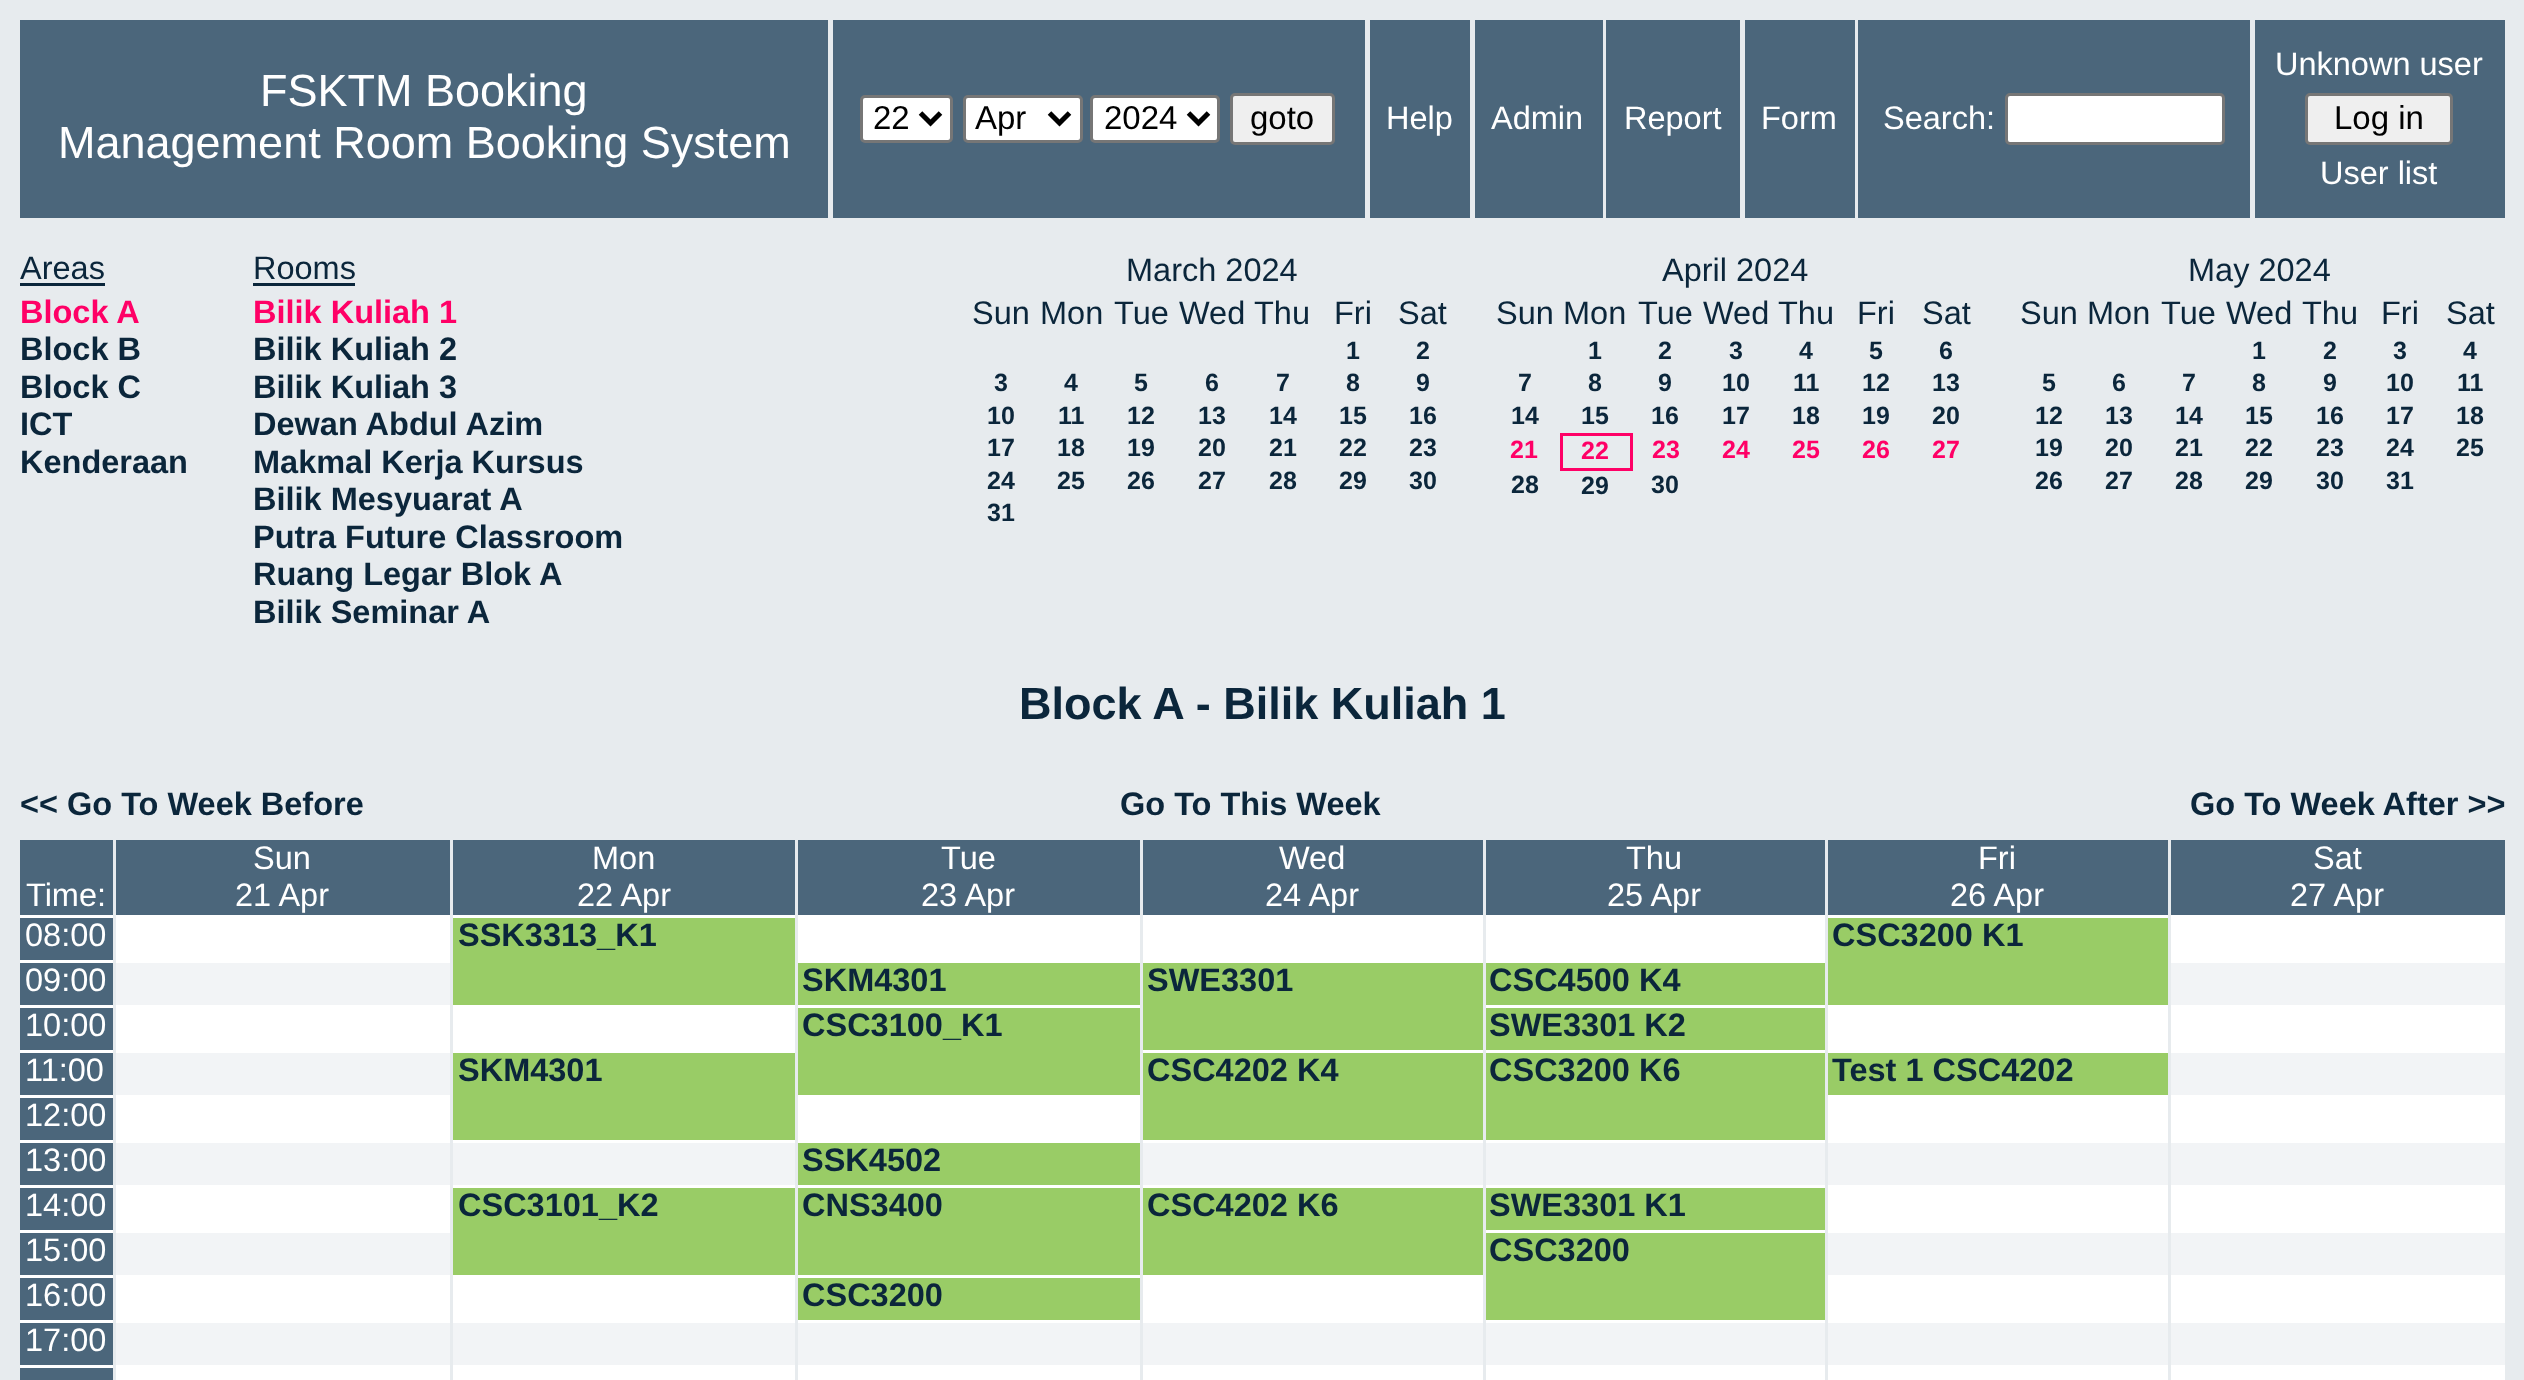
<!DOCTYPE html>
<meta charset="utf-8">
<style>body { margin: 0 } canvas { display: block }</style>
<canvas id="canvas" width="2524" height="1380"></canvas>
<script>
window.onload = function () {
	const canvas = document.getElementById("canvas");
	const ctx = canvas.getContext("2d");
	ctx.miterLimit = 4;
	ctx.fontKerning = "normal";
	function txt(s, x, y) {
		ctx.fillText(s, x, y);
	}
	function fill(x, y, w, h) {
		ctx.fillRect(x, y, w, h);
	}

	ctx.fillStyle = "#E7EBEE";
	fill(0, 0, 2524, 1380);
	ctx.fillStyle = "#4B667B";
	fill(20, 20, 808, 198);
	fill(833, 20, 532, 198);
	ctx.fillStyle = "#FFFFFF";
	ctx.beginPath();
	ctx.roundRect(861.5, 96.5, 90, 45, 3.5);
	ctx.fill();
	ctx.strokeStyle = "#767676";
	ctx.lineWidth = 3;
	ctx.stroke();
	ctx.beginPath();
	ctx.moveTo(920.5, 113);
	ctx.lineTo(930.5, 123);
	ctx.lineTo(940.5, 113);
	ctx.strokeStyle = "#000000";
	ctx.lineWidth = 5;
	ctx.stroke();
	ctx.beginPath();
	ctx.roundRect(964.5, 96.5, 117, 45, 3.5);
	ctx.fill();
	ctx.strokeStyle = "#767676";
	ctx.lineWidth = 3;
	ctx.stroke();
	ctx.beginPath();
	ctx.moveTo(1049.5, 113);
	ctx.lineTo(1059.5, 123);
	ctx.lineTo(1069.5, 113);
	ctx.strokeStyle = "#000000";
	ctx.lineWidth = 5;
	ctx.stroke();
	ctx.beginPath();
	ctx.roundRect(1091.5, 96.5, 127, 45, 3.5);
	ctx.fill();
	ctx.strokeStyle = "#767676";
	ctx.lineWidth = 3;
	ctx.stroke();
	ctx.beginPath();
	ctx.moveTo(1188.5, 113);
	ctx.lineTo(1198.5, 123);
	ctx.lineTo(1208.5, 113);
	ctx.strokeStyle = "#000000";
	ctx.lineWidth = 5;
	ctx.stroke();
	ctx.fillStyle = "#EFEFEF";
	ctx.beginPath();
	ctx.roundRect(1231.5, 94.5, 102, 49, 3.5);
	ctx.fill();
	ctx.strokeStyle = "#767676";
	ctx.lineWidth = 3;
	ctx.stroke();
	ctx.fillStyle = "#4B667B";
	fill(1370, 20, 100, 198);
	fill(1475, 20, 128, 198);
	fill(1606, 20, 134, 198);
	fill(1745, 20, 110, 198);
	fill(1858, 20, 392, 198);
	ctx.fillStyle = "#FFFFFF";
	ctx.beginPath();
	ctx.roundRect(2006.5, 94.5, 217, 49, 3.5);
	ctx.fill();
	ctx.stroke();
	ctx.fillStyle = "#4B667B";
	fill(2255, 20, 250, 198);
	ctx.fillStyle = "#EFEFEF";
	ctx.beginPath();
	ctx.roundRect(2306.5, 94.5, 145, 49, 3.5);
	ctx.fill();
	ctx.stroke();
	ctx.fillStyle = "#0B263B";
	fill(20, 283, 85, 3);
	fill(253, 283, 102, 3);
	ctx.fillStyle = "#FF0066";
	fill(1560, 433, 73, 3);
	fill(1630, 433, 3, 37);
	fill(1560, 468, 73, 3);
	fill(1560, 433, 3, 37);
	ctx.fillStyle = "#4B667B";
	fill(20, 840, 93, 75);
	fill(116, 840, 334, 75);
	fill(453, 840, 342, 75);
	fill(798, 840, 342, 75);
	fill(1143, 840, 340, 75);
	fill(1486, 840, 339, 75);
	fill(1828, 840, 340, 75);
	fill(2171, 840, 334, 75);
	fill(20, 918, 93, 42);
	ctx.fillStyle = "#FFFFFF";
	fill(20, 915, 93, 3);
	fill(116, 915, 334, 45);
	ctx.fillStyle = "#99CC66";
	fill(453, 918, 342, 87);
	ctx.fillStyle = "#FFFFFF";
	fill(450, 915, 345, 3);
	ctx.fillStyle = "#E7EBEE";
	fill(450, 915, 3, 3);
	ctx.fillStyle = "#FFFFFF";
	fill(798, 915, 342, 45);
	fill(1143, 915, 340, 45);
	fill(1486, 915, 339, 45);
	ctx.fillStyle = "#99CC66";
	fill(1828, 918, 340, 87);
	ctx.fillStyle = "#FFFFFF";
	fill(1825, 915, 343, 3);
	ctx.fillStyle = "#E7EBEE";
	fill(1825, 915, 3, 3);
	ctx.fillStyle = "#FFFFFF";
	fill(2171, 915, 334, 45);
	ctx.fillStyle = "#4B667B";
	fill(20, 963, 93, 42);
	ctx.fillStyle = "#FFFFFF";
	fill(20, 960, 430, 3);
	ctx.fillStyle = "#F2F4F6";
	fill(116, 963, 334, 42);
	ctx.fillStyle = "#E7EBEE";
	fill(113, 960, 3, 3);
	ctx.fillStyle = "#99CC66";
	fill(798, 963, 342, 42);
	ctx.fillStyle = "#FFFFFF";
	fill(795, 960, 1030, 3);
	ctx.fillStyle = "#E7EBEE";
	fill(795, 960, 3, 3);
	ctx.fillStyle = "#99CC66";
	fill(1143, 963, 340, 87);
	ctx.fillStyle = "#E7EBEE";
	fill(1140, 960, 3, 3);
	ctx.fillStyle = "#99CC66";
	fill(1486, 963, 339, 42);
	ctx.fillStyle = "#E7EBEE";
	fill(1483, 960, 3, 3);
	ctx.fillStyle = "#F2F4F6";
	fill(2171, 963, 334, 42);
	ctx.fillStyle = "#FFFFFF";
	fill(2168, 960, 337, 3);
	ctx.fillStyle = "#E7EBEE";
	fill(2168, 960, 3, 3);
	ctx.fillStyle = "#4B667B";
	fill(20, 1008, 93, 42);
	ctx.fillStyle = "#FFFFFF";
	fill(20, 1005, 93, 3);
	fill(116, 1005, 334, 45);
	fill(453, 1005, 342, 45);
	ctx.fillStyle = "#99CC66";
	fill(798, 1008, 342, 87);
	ctx.fillStyle = "#FFFFFF";
	fill(795, 1005, 345, 3);
	ctx.fillStyle = "#E7EBEE";
	fill(795, 1005, 3, 3);
	ctx.fillStyle = "#99CC66";
	fill(1486, 1008, 339, 42);
	ctx.fillStyle = "#FFFFFF";
	fill(1483, 1005, 342, 3);
	ctx.fillStyle = "#E7EBEE";
	fill(1483, 1005, 3, 3);
	ctx.fillStyle = "#FFFFFF";
	fill(1828, 1005, 340, 45);
	fill(2171, 1005, 334, 45);
	ctx.fillStyle = "#4B667B";
	fill(20, 1053, 93, 42);
	ctx.fillStyle = "#FFFFFF";
	fill(20, 1050, 775, 3);
	ctx.fillStyle = "#F2F4F6";
	fill(116, 1053, 334, 42);
	ctx.fillStyle = "#E7EBEE";
	fill(113, 1050, 3, 3);
	ctx.fillStyle = "#99CC66";
	fill(453, 1053, 342, 87);
	ctx.fillStyle = "#E7EBEE";
	fill(450, 1050, 3, 3);
	ctx.fillStyle = "#99CC66";
	fill(1143, 1053, 340, 87);
	ctx.fillStyle = "#FFFFFF";
	fill(1140, 1050, 1365, 3);
	ctx.fillStyle = "#E7EBEE";
	fill(1140, 1050, 3, 3);
	ctx.fillStyle = "#99CC66";
	fill(1486, 1053, 339, 87);
	ctx.fillStyle = "#E7EBEE";
	fill(1483, 1050, 3, 3);
	ctx.fillStyle = "#99CC66";
	fill(1828, 1053, 340, 42);
	ctx.fillStyle = "#E7EBEE";
	fill(1825, 1050, 3, 3);
	ctx.fillStyle = "#F2F4F6";
	fill(2171, 1053, 334, 42);
	ctx.fillStyle = "#E7EBEE";
	fill(2168, 1050, 3, 3);
	ctx.fillStyle = "#4B667B";
	fill(20, 1098, 93, 42);
	ctx.fillStyle = "#FFFFFF";
	fill(20, 1095, 93, 3);
	fill(116, 1095, 334, 45);
	fill(798, 1095, 342, 45);
	fill(1828, 1095, 340, 45);
	fill(2171, 1095, 334, 45);
	ctx.fillStyle = "#4B667B";
	fill(20, 1143, 93, 42);
	ctx.fillStyle = "#FFFFFF";
	fill(20, 1140, 2485, 3);
	ctx.fillStyle = "#F2F4F6";
	fill(116, 1143, 334, 42);
	ctx.fillStyle = "#E7EBEE";
	fill(113, 1140, 3, 3);
	ctx.fillStyle = "#F2F4F6";
	fill(453, 1143, 342, 42);
	ctx.fillStyle = "#E7EBEE";
	fill(450, 1140, 3, 3);
	ctx.fillStyle = "#99CC66";
	fill(798, 1143, 342, 42);
	ctx.fillStyle = "#E7EBEE";
	fill(795, 1140, 3, 3);
	ctx.fillStyle = "#F2F4F6";
	fill(1143, 1143, 340, 42);
	ctx.fillStyle = "#E7EBEE";
	fill(1140, 1140, 3, 3);
	ctx.fillStyle = "#F2F4F6";
	fill(1486, 1143, 339, 42);
	ctx.fillStyle = "#E7EBEE";
	fill(1483, 1140, 3, 3);
	ctx.fillStyle = "#F2F4F6";
	fill(1828, 1143, 340, 42);
	ctx.fillStyle = "#E7EBEE";
	fill(1825, 1140, 3, 3);
	ctx.fillStyle = "#F2F4F6";
	fill(2171, 1143, 334, 42);
	ctx.fillStyle = "#E7EBEE";
	fill(2168, 1140, 3, 3);
	ctx.fillStyle = "#4B667B";
	fill(20, 1188, 93, 42);
	ctx.fillStyle = "#FFFFFF";
	fill(20, 1185, 93, 3);
	fill(116, 1185, 334, 45);
	ctx.fillStyle = "#99CC66";
	fill(453, 1188, 342, 87);
	ctx.fillStyle = "#FFFFFF";
	fill(450, 1185, 1375, 3);
	ctx.fillStyle = "#E7EBEE";
	fill(450, 1185, 3, 3);
	ctx.fillStyle = "#99CC66";
	fill(798, 1188, 342, 87);
	ctx.fillStyle = "#E7EBEE";
	fill(795, 1185, 3, 3);
	ctx.fillStyle = "#99CC66";
	fill(1143, 1188, 340, 87);
	ctx.fillStyle = "#E7EBEE";
	fill(1140, 1185, 3, 3);
	ctx.fillStyle = "#99CC66";
	fill(1486, 1188, 339, 42);
	ctx.fillStyle = "#E7EBEE";
	fill(1483, 1185, 3, 3);
	ctx.fillStyle = "#FFFFFF";
	fill(1828, 1185, 340, 45);
	fill(2171, 1185, 334, 45);
	ctx.fillStyle = "#4B667B";
	fill(20, 1233, 93, 42);
	ctx.fillStyle = "#FFFFFF";
	fill(20, 1230, 430, 3);
	ctx.fillStyle = "#F2F4F6";
	fill(116, 1233, 334, 42);
	ctx.fillStyle = "#E7EBEE";
	fill(113, 1230, 3, 3);
	ctx.fillStyle = "#99CC66";
	fill(1486, 1233, 339, 87);
	ctx.fillStyle = "#FFFFFF";
	fill(1483, 1230, 1022, 3);
	ctx.fillStyle = "#E7EBEE";
	fill(1483, 1230, 3, 3);
	ctx.fillStyle = "#F2F4F6";
	fill(1828, 1233, 340, 42);
	ctx.fillStyle = "#E7EBEE";
	fill(1825, 1230, 3, 3);
	ctx.fillStyle = "#F2F4F6";
	fill(2171, 1233, 334, 42);
	ctx.fillStyle = "#E7EBEE";
	fill(2168, 1230, 3, 3);
	ctx.fillStyle = "#4B667B";
	fill(20, 1278, 93, 42);
	ctx.fillStyle = "#FFFFFF";
	fill(20, 1275, 93, 3);
	fill(116, 1275, 334, 45);
	fill(453, 1275, 342, 45);
	ctx.fillStyle = "#99CC66";
	fill(798, 1278, 342, 42);
	ctx.fillStyle = "#FFFFFF";
	fill(795, 1275, 345, 3);
	ctx.fillStyle = "#E7EBEE";
	fill(795, 1275, 3, 3);
	ctx.fillStyle = "#FFFFFF";
	fill(1143, 1275, 340, 45);
	fill(1828, 1275, 340, 45);
	fill(2171, 1275, 334, 45);
	ctx.fillStyle = "#4B667B";
	fill(20, 1323, 93, 42);
	ctx.fillStyle = "#FFFFFF";
	fill(20, 1320, 2485, 3);
	ctx.fillStyle = "#F2F4F6";
	fill(116, 1323, 334, 42);
	ctx.fillStyle = "#E7EBEE";
	fill(113, 1320, 3, 3);
	ctx.fillStyle = "#F2F4F6";
	fill(453, 1323, 342, 42);
	ctx.fillStyle = "#E7EBEE";
	fill(450, 1320, 3, 3);
	ctx.fillStyle = "#F2F4F6";
	fill(798, 1323, 342, 42);
	ctx.fillStyle = "#E7EBEE";
	fill(795, 1320, 3, 3);
	ctx.fillStyle = "#F2F4F6";
	fill(1143, 1323, 340, 42);
	ctx.fillStyle = "#E7EBEE";
	fill(1140, 1320, 3, 3);
	ctx.fillStyle = "#F2F4F6";
	fill(1486, 1323, 339, 42);
	ctx.fillStyle = "#E7EBEE";
	fill(1483, 1320, 3, 3);
	ctx.fillStyle = "#F2F4F6";
	fill(1828, 1323, 340, 42);
	ctx.fillStyle = "#E7EBEE";
	fill(1825, 1320, 3, 3);
	ctx.fillStyle = "#F2F4F6";
	fill(2171, 1323, 334, 42);
	ctx.fillStyle = "#E7EBEE";
	fill(2168, 1320, 3, 3);
	ctx.fillStyle = "#4B667B";
	fill(20, 1368, 93, 12);
	ctx.fillStyle = "#FFFFFF";
	fill(20, 1365, 93, 3);
	fill(116, 1365, 334, 15);
	fill(453, 1365, 342, 15);
	fill(798, 1365, 342, 15);
	fill(1143, 1365, 340, 15);
	fill(1486, 1365, 339, 15);
	fill(1828, 1365, 340, 15);
	fill(2171, 1365, 334, 15);
	ctx.font = "45px Liberation Sans";
	txt("FSKTM Booking", 260, 106);
	txt("Management Room Booking System", 58, 158);
	ctx.font = "33px Liberation Sans";
	ctx.fillStyle = "#000000";
	txt("22", 873, 129);
	txt("Apr", 975, 129);
	txt("2024", 1104, 129);
	txt("goto", 1250, 129);
	ctx.font = "32.5px Liberation Sans";
	ctx.fillStyle = "#FFFFFF";
	txt("Help", 1386, 129);
	txt("Admin", 1491, 129);
	txt("Report", 1624, 129);
	txt("Form", 1761, 129);
	txt("Search:", 1883, 129);
	txt("Unknown user", 2275, 75);
	ctx.font = "33px Liberation Sans";
	ctx.fillStyle = "#000000";
	txt("Log in", 2334, 129);
	ctx.font = "32.5px Liberation Sans";
	ctx.fillStyle = "#FFFFFF";
	txt("User list", 2320, 184);
	ctx.fillStyle = "#0B263B";
	txt("Areas", 20, 279);
	ctx.font = "bold 32.5px Liberation Sans";
	ctx.fillStyle = "#FF0066";
	txt("Block A", 20, 323);
	ctx.fillStyle = "#0B263B";
	txt("Block B", 20, 360);
	txt("Block C", 20, 398);
	txt("ICT", 20, 435);
	txt("Kenderaan", 20, 473);
	ctx.font = "32.5px Liberation Sans";
	txt("Rooms", 253, 279);
	ctx.font = "bold 32.5px Liberation Sans";
	ctx.fillStyle = "#FF0066";
	txt("Bilik Kuliah 1", 253, 323);
	ctx.fillStyle = "#0B263B";
	txt("Bilik Kuliah 2", 253, 360);
	txt("Bilik Kuliah 3", 253, 398);
	txt("Dewan Abdul Azim", 253, 435);
	txt("Makmal Kerja Kursus", 253, 473);
	txt("Bilik Mesyuarat A", 253, 510);
	txt("Putra Future Classroom", 253, 548);
	txt("Ruang Legar Blok A", 253, 585);
	txt("Bilik Seminar A", 253, 623);
	ctx.font = "32.5px Liberation Sans";
	txt("March 2024", 1126, 281);
	txt("Sun", 972, 324);
	txt("Mon", 1040, 324);
	txt("Tue", 1114, 324);
	txt("Wed", 1179, 324);
	txt("Thu", 1254, 324);
	txt("Fri", 1334, 324);
	txt("Sat", 1398, 324);
	ctx.font = "bold 25px Liberation Sans";
	txt("1", 1346, 359);
	txt("2", 1416, 359);
	txt("3", 994, 391);
	txt("4", 1064, 391);
	txt("5", 1134, 391);
	txt("6", 1205, 391);
	txt("7", 1276, 391);
	txt("8", 1346, 391);
	txt("9", 1416, 391);
	txt("10", 987, 424);
	txt("11", 1058, 424);
	txt("12", 1127, 424);
	txt("13", 1198, 424);
	txt("14", 1269, 424);
	txt("15", 1339, 424);
	txt("16", 1409, 424);
	txt("17", 987, 456);
	txt("18", 1057, 456);
	txt("19", 1127, 456);
	txt("20", 1198, 456);
	txt("21", 1269, 456);
	txt("22", 1339, 456);
	txt("23", 1409, 456);
	txt("24", 987, 489);
	txt("25", 1057, 489);
	txt("26", 1127, 489);
	txt("27", 1198, 489);
	txt("28", 1269, 489);
	txt("29", 1339, 489);
	txt("30", 1409, 489);
	txt("31", 987, 521);
	ctx.font = "32.5px Liberation Sans";
	txt("April 2024", 1662, 281);
	txt("Sun", 1496, 324);
	txt("Mon", 1563, 324);
	txt("Tue", 1638, 324);
	txt("Wed", 1703, 324);
	txt("Thu", 1778, 324);
	txt("Fri", 1857, 324);
	txt("Sat", 1922, 324);
	ctx.font = "bold 25px Liberation Sans";
	txt("1", 1588, 359);
	txt("2", 1658, 359);
	txt("3", 1729, 359);
	txt("4", 1799, 359);
	txt("5", 1869, 359);
	txt("6", 1939, 359);
	txt("7", 1518, 391);
	txt("8", 1588, 391);
	txt("9", 1658, 391);
	txt("10", 1722, 391);
	txt("11", 1793, 391);
	txt("12", 1862, 391);
	txt("13", 1932, 391);
	txt("14", 1511, 424);
	txt("15", 1581, 424);
	txt("16", 1651, 424);
	txt("17", 1722, 424);
	txt("18", 1792, 424);
	txt("19", 1862, 424);
	txt("20", 1932, 424);
	ctx.fillStyle = "#FF0066";
	txt("21", 1510, 458);
	txt("22", 1581, 459);
	txt("23", 1652, 458);
	txt("24", 1722, 458);
	txt("25", 1792, 458);
	txt("26", 1862, 458);
	txt("27", 1932, 458);
	ctx.fillStyle = "#0B263B";
	txt("28", 1511, 493);
	txt("29", 1581, 494);
	txt("30", 1651, 493);
	ctx.font = "32.5px Liberation Sans";
	txt("May 2024", 2188, 281);
	txt("Sun", 2020, 324);
	txt("Mon", 2087, 324);
	txt("Tue", 2161, 324);
	txt("Wed", 2226, 324);
	txt("Thu", 2302, 324);
	txt("Fri", 2381, 324);
	txt("Sat", 2446, 324);
	ctx.font = "bold 25px Liberation Sans";
	txt("1", 2252, 359);
	txt("2", 2323, 359);
	txt("3", 2393, 359);
	txt("4", 2463, 359);
	txt("5", 2042, 391);
	txt("6", 2112, 391);
	txt("7", 2182, 391);
	txt("8", 2252, 391);
	txt("9", 2323, 391);
	txt("10", 2386, 391);
	txt("11", 2457, 391);
	txt("12", 2035, 424);
	txt("13", 2105, 424);
	txt("14", 2175, 424);
	txt("15", 2245, 424);
	txt("16", 2316, 424);
	txt("17", 2386, 424);
	txt("18", 2456, 424);
	txt("19", 2035, 456);
	txt("20", 2105, 456);
	txt("21", 2175, 456);
	txt("22", 2245, 456);
	txt("23", 2316, 456);
	txt("24", 2386, 456);
	txt("25", 2456, 456);
	txt("26", 2035, 489);
	txt("27", 2105, 489);
	txt("28", 2175, 489);
	txt("29", 2245, 489);
	txt("30", 2316, 489);
	txt("31", 2386, 489);
	ctx.font = "bold 45px Liberation Sans";
	txt("Block A - Bilik Kuliah 1", 1019, 719);
	ctx.font = "bold 32.5px Liberation Sans";
	txt("<< Go To Week Before", 20, 815);
	txt("Go To This Week", 1120, 815);
	txt("Go To Week After >>", 2190, 815);
	ctx.font = "32.5px Liberation Sans";
	ctx.fillStyle = "#FFFFFF";
	txt("Time:", 26, 906);
	txt("Sun", 253, 869);
	txt("21 Apr", 235, 906);
	txt("Mon", 592, 869);
	txt("22 Apr", 577, 906);
	txt("Tue", 941, 869);
	txt("23 Apr", 921, 906);
	txt("Wed", 1279, 869);
	txt("24 Apr", 1265, 906);
	txt("Thu", 1626, 869);
	txt("25 Apr", 1607, 906);
	txt("Fri", 1978, 869);
	txt("26 Apr", 1950, 906);
	txt("Sat", 2313, 869);
	txt("27 Apr", 2290, 906);
	txt("08:00", 25, 946);
	ctx.font = "bold 32.5px Liberation Sans";
	ctx.fillStyle = "#0B263B";
	txt("SSK3313_K1", 458, 946);
	txt("CSC3200 K1", 1832, 946);
	ctx.font = "32.5px Liberation Sans";
	ctx.fillStyle = "#FFFFFF";
	txt("09:00", 25, 991);
	ctx.font = "bold 32.5px Liberation Sans";
	ctx.fillStyle = "#0B263B";
	txt("SKM4301", 802, 991);
	txt("SWE3301", 1147, 991);
	txt("CSC4500 K4", 1489, 991);
	ctx.font = "32.5px Liberation Sans";
	ctx.fillStyle = "#FFFFFF";
	txt("10:00", 25, 1036);
	ctx.font = "bold 32.5px Liberation Sans";
	ctx.fillStyle = "#0B263B";
	txt("CSC3100_K1", 802, 1036);
	txt("SWE3301 K2", 1489, 1036);
	ctx.font = "32.5px Liberation Sans";
	ctx.fillStyle = "#FFFFFF";
	txt("11:00", 25, 1081);
	ctx.font = "bold 32.5px Liberation Sans";
	ctx.fillStyle = "#0B263B";
	txt("SKM4301", 458, 1081);
	txt("CSC4202 K4", 1147, 1081);
	txt("CSC3200 K6", 1489, 1081);
	txt("Test 1 CSC4202", 1832, 1081);
	ctx.font = "32.5px Liberation Sans";
	ctx.fillStyle = "#FFFFFF";
	txt("12:00", 25, 1126);
	txt("13:00", 25, 1171);
	ctx.font = "bold 32.5px Liberation Sans";
	ctx.fillStyle = "#0B263B";
	txt("SSK4502", 802, 1171);
	ctx.font = "32.5px Liberation Sans";
	ctx.fillStyle = "#FFFFFF";
	txt("14:00", 25, 1216);
	ctx.font = "bold 32.5px Liberation Sans";
	ctx.fillStyle = "#0B263B";
	txt("CSC3101_K2", 458, 1216);
	txt("CNS3400", 802, 1216);
	txt("CSC4202 K6", 1147, 1216);
	txt("SWE3301 K1", 1489, 1216);
	ctx.font = "32.5px Liberation Sans";
	ctx.fillStyle = "#FFFFFF";
	txt("15:00", 25, 1261);
	ctx.font = "bold 32.5px Liberation Sans";
	ctx.fillStyle = "#0B263B";
	txt("CSC3200", 1489, 1261);
	ctx.font = "32.5px Liberation Sans";
	ctx.fillStyle = "#FFFFFF";
	txt("16:00", 25, 1306);
	ctx.font = "bold 32.5px Liberation Sans";
	ctx.fillStyle = "#0B263B";
	txt("CSC3200", 802, 1306);
	ctx.font = "32.5px Liberation Sans";
	ctx.fillStyle = "#FFFFFF";
	txt("17:00", 25, 1351);
};
</script>
